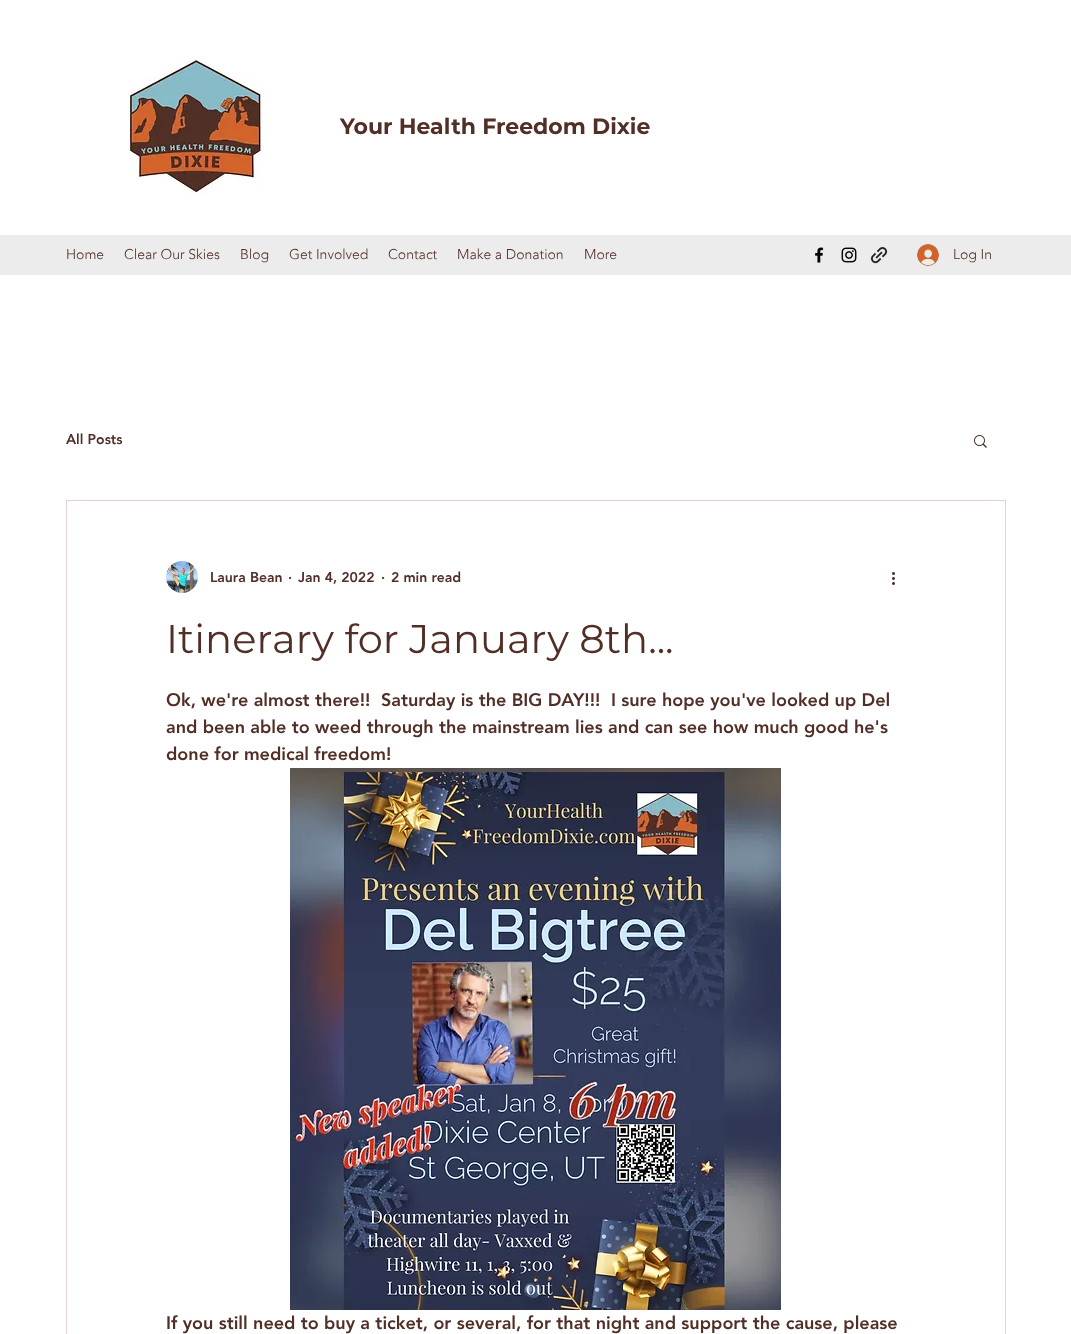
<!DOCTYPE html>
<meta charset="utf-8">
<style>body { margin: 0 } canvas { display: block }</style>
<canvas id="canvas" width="1071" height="1334"></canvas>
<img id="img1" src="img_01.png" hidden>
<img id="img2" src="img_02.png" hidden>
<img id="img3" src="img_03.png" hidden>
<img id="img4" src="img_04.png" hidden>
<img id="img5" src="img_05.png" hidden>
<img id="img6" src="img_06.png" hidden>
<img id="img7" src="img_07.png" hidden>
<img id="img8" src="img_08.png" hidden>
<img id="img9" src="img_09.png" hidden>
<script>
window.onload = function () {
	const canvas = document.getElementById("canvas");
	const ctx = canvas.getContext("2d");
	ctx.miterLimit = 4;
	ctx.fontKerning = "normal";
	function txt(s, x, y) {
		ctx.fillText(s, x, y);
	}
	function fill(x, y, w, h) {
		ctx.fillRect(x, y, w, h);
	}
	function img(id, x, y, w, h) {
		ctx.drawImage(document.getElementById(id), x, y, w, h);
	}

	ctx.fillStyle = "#FFFFFF";
	fill(0, 0, 1071, 1334);
	img("img1", 129, 58, 135, 136);
	ctx.fillStyle = "#ECECEC";
	fill(0, 235, 1071, 40);
	img("img2", 815, 247, 9, 16);
	img("img3", 841, 247, 16, 16);
	img("img4", 870, 246, 18, 18);
	img("img5", 917, 244, 22, 22);
	img("img6", 974, 435, 13, 13);
	ctx.strokeStyle = "#E8D2CD";
	ctx.strokeRect(66.5, 500.5, 939, 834);
	img("img7", 166, 561, 32, 32);
	img("img8", 892, 572, 3, 13);
	img("img9", 290, 768, 491, 542);
	ctx.font = "bold 22px Montserrat";
	ctx.fillStyle = "#512E26";
	txt("Your Health Freedom Dixie", 340, 134);
	ctx.font = "300 14px 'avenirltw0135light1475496'";
	txt("Home", 66, 259);
	txt("Clear Our Skies", 124, 259);
	txt("Blog", 240, 259);
	txt("Get Involved", 289, 259);
	txt("Contact", 388, 259);
	txt("Make a Donation", 457, 259);
	txt("More", 584, 259);
	txt("Log In", 953, 259);
	ctx.font = "900 14px 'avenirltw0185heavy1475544'";
	txt("All Posts", 66, 444);
	txt("Laura Bean", 210, 582);
	txt("·", 288, 582);
	txt("Jan 4, 2022", 298, 582);
	txt("·", 381, 582);
	txt("2 min read", 391, 582);
	ctx.font = "40px Montserrat";
	txt("Itinerary for January 8th...", 166, 653);
	ctx.font = "900 18px 'avenirltw0185heavy1475544'";
	txt("Ok, we're almost there!!  Saturday is the BIG DAY!!!  I sure hope you've looked up Del", 166, 706);
	txt("and been able to weed through the mainstream lies and can see how much good he's", 166, 733);
	txt("done for medical freedom!", 166, 760);
	txt("If you still need to buy a ticket, or several, for that night and support the cause, please", 166, 1329);
};
</script>
